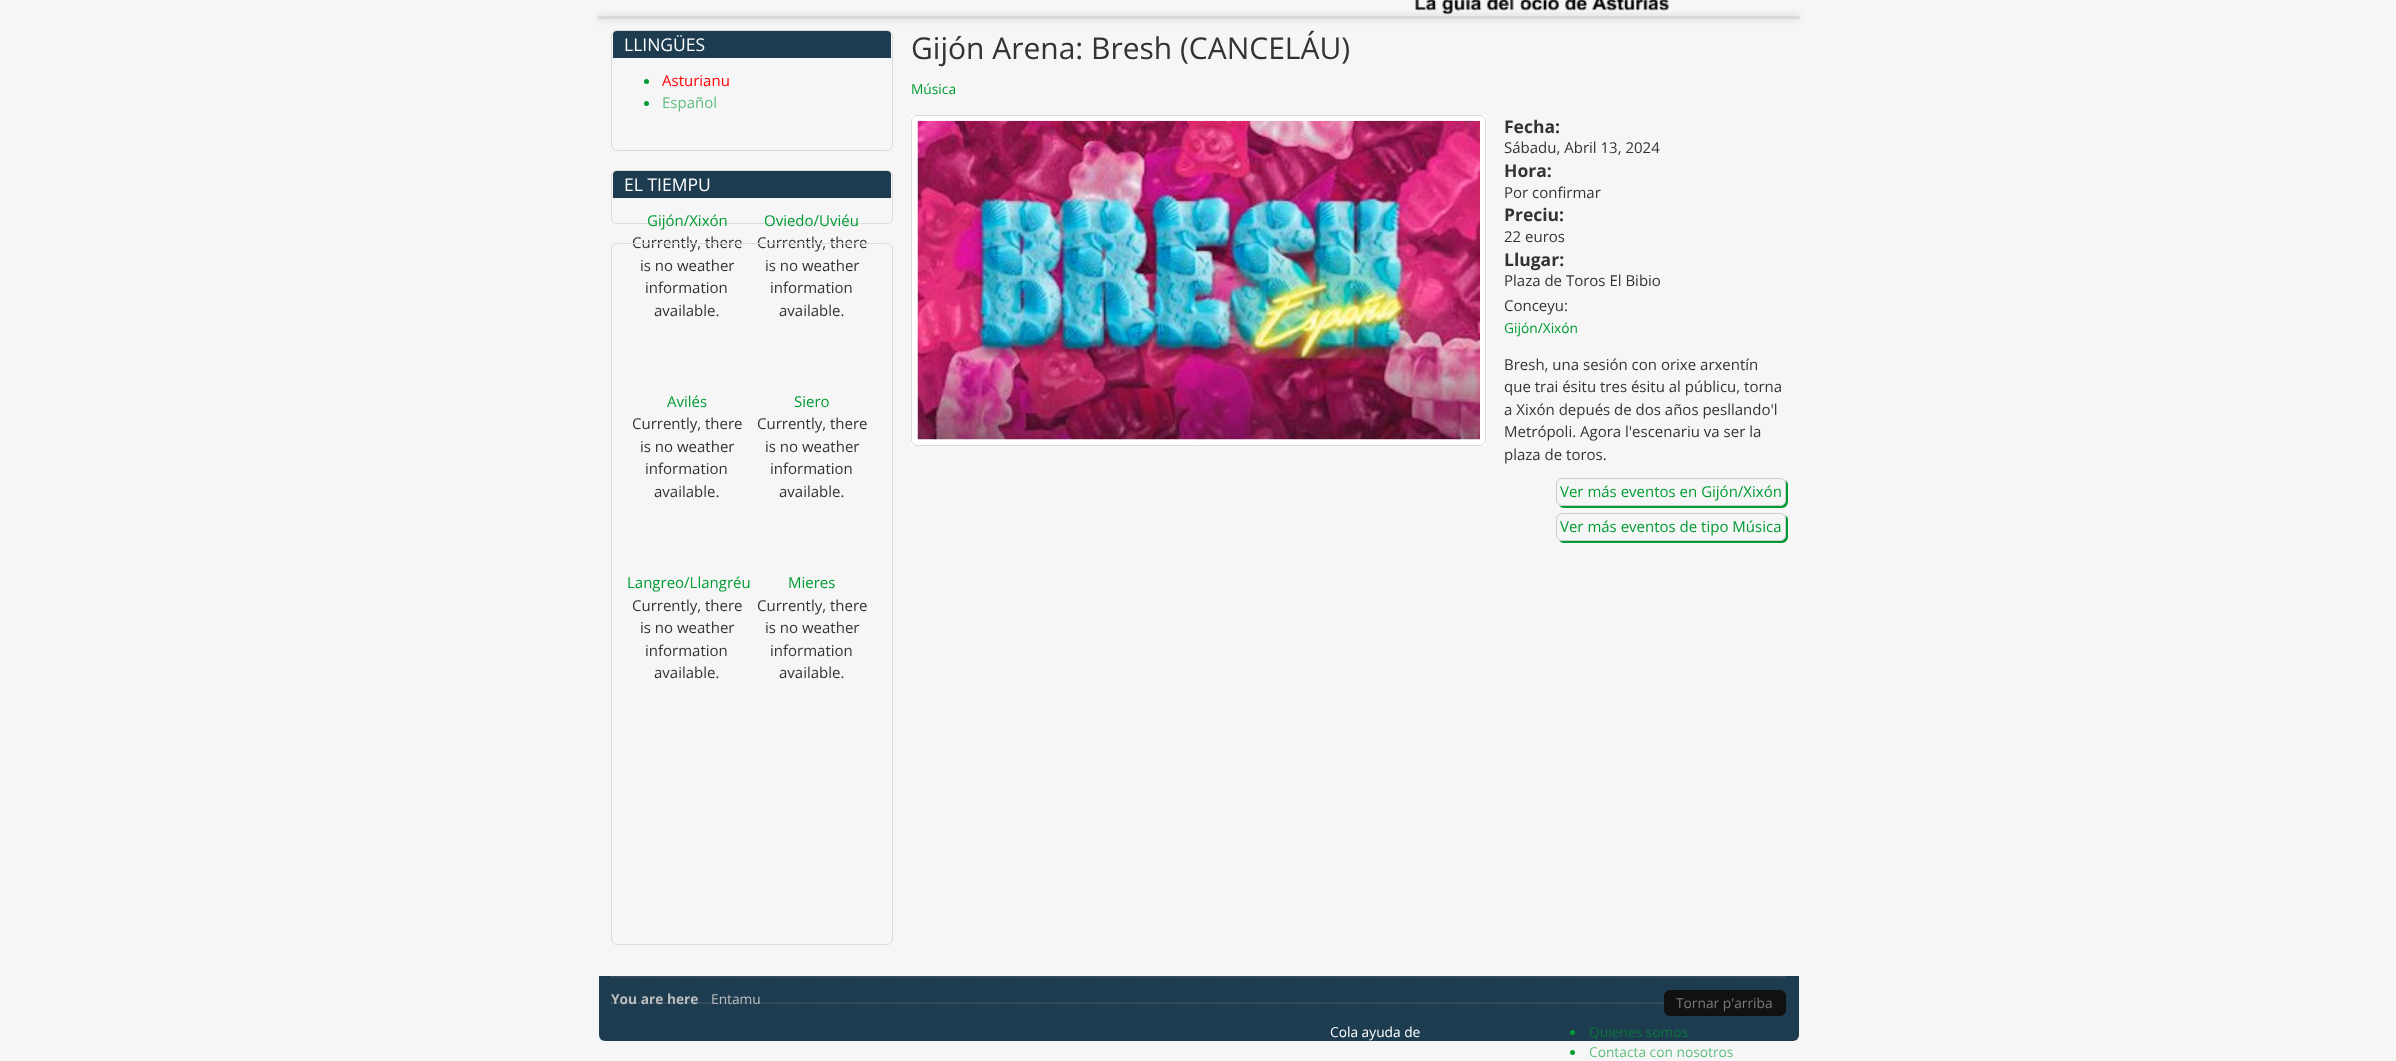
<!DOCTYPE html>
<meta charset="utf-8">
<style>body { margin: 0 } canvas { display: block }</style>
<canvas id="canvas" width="2396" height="1061"></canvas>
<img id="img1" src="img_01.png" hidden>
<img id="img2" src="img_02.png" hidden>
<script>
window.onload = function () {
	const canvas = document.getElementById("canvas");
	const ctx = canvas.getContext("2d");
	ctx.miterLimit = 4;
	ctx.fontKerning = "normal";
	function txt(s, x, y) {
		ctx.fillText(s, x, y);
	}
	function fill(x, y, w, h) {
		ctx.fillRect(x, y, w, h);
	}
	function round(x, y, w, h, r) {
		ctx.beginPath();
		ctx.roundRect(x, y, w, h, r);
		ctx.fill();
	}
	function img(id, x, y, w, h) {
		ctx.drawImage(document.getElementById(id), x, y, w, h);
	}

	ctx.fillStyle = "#F6F6F6";
	fill(0, 0, 2396, 1061);
	ctx.fillStyle = "#CCCCCC";
	ctx.filter = "blur(3px)";
	ctx.beginPath();
	ctx.roundRect(598, 16, 1202, 3, 1.5);
	ctx.fill();
	ctx.filter = "none";
	img("img1", 1414, 0, 255, 15);
	ctx.fillStyle = "#D9D9D9";
	round(598, 16, 1202, 3, 1.5);
	ctx.beginPath();
	ctx.roundRect(611.5, 30.5, 281, 120, 5.5);
	ctx.strokeStyle = "#DADADA";
	ctx.stroke();
	ctx.fillStyle = "#1E3C50";
	ctx.beginPath();
	ctx.roundRect(613, 31, 278, 27, [4, 4, 0, 0]);
	ctx.fill();
	ctx.fillStyle = "#009B33";
	ctx.beginPath();
	ctx.arc(646.5, 81.5, 2.5, 0, Math.PI * 2);
	ctx.fill();
	ctx.beginPath();
	ctx.arc(646.5, 103.5, 2.5, 0, Math.PI * 2);
	ctx.fill();
	ctx.beginPath();
	ctx.roundRect(611.5, 170.5, 281, 53, 5.5);
	ctx.stroke();
	ctx.fillStyle = "#1E3C50";
	ctx.beginPath();
	ctx.roundRect(613, 171, 278, 27, [4, 4, 0, 0]);
	ctx.fill();
	ctx.fillStyle = "#FFFFFF";
	fill(911, 115, 575, 331);
	ctx.beginPath();
	ctx.roundRect(911.5, 115.5, 574, 330, 5.5);
	ctx.stroke();
	img("img2", 917, 120, 563, 320);
	ctx.fillStyle = "#009B33";
	ctx.beginPath();
	ctx.moveTo(1559, 505);
	ctx.bezierCurveTo(1560, 507, 1562, 508, 1564, 508);
	ctx.lineTo(1782, 508);
	ctx.bezierCurveTo(1785, 508, 1788, 505, 1788, 502);
	ctx.lineTo(1788, 485);
	ctx.bezierCurveTo(1788, 483, 1787, 481, 1785, 480);
	ctx.bezierCurveTo(1786, 481, 1786, 482, 1786, 484);
	ctx.lineTo(1786, 500);
	ctx.bezierCurveTo(1786, 503, 1783, 506, 1780, 506);
	ctx.lineTo(1562, 506);
	ctx.bezierCurveTo(1561, 506, 1560, 506, 1559, 505);
	ctx.closePath();
	ctx.fill();
	ctx.beginPath();
	ctx.roundRect(1556.5, 478.5, 229, 27, 5.5);
	ctx.strokeStyle = "#CCCCCC";
	ctx.stroke();
	ctx.beginPath();
	ctx.moveTo(1559, 540);
	ctx.bezierCurveTo(1560, 542, 1562, 543, 1564, 543);
	ctx.lineTo(1782, 543);
	ctx.bezierCurveTo(1785, 543, 1788, 540, 1788, 537);
	ctx.lineTo(1788, 520);
	ctx.bezierCurveTo(1788, 518, 1787, 516, 1785, 515);
	ctx.bezierCurveTo(1786, 516, 1786, 517, 1786, 519);
	ctx.lineTo(1786, 535);
	ctx.bezierCurveTo(1786, 538, 1783, 541, 1780, 541);
	ctx.lineTo(1562, 541);
	ctx.bezierCurveTo(1561, 541, 1560, 541, 1559, 540);
	ctx.closePath();
	ctx.fill();
	ctx.beginPath();
	ctx.roundRect(1556.5, 513.5, 229, 27, 5.5);
	ctx.stroke();
	ctx.fillStyle = "#1E3C50";
	ctx.beginPath();
	ctx.roundRect(599, 976, 1200, 65, [0, 0, 6, 6]);
	ctx.fill();
	ctx.beginPath();
	ctx.moveTo(611, 977);
	ctx.lineTo(1786, 977);
	ctx.strokeStyle = "#717578";
	ctx.lineWidth = 1.2;
	ctx.setLineDash([1.25, 1.25]);
	ctx.stroke();
	ctx.beginPath();
	ctx.moveTo(611, 1003);
	ctx.lineTo(1786, 1003);
	ctx.stroke();
	ctx.fillStyle = "#111111";
	round(1664, 990, 122, 26, 6);
	ctx.fillStyle = "#009B33";
	ctx.beginPath();
	ctx.arc(1572.5, 1032.5, 2.5, 0, Math.PI * 2);
	ctx.fill();
	ctx.beginPath();
	ctx.arc(1572.5, 1052.5, 2.5, 0, Math.PI * 2);
	ctx.fill();
	ctx.font = "17.5px Open Sans";
	ctx.fillStyle = "#FFFFFF";
	txt("LLINGÜES", 624, 51);
	ctx.font = "15px Open Sans";
	ctx.fillStyle = "#FF0000";
	txt("Asturianu", 662, 86);
	ctx.fillStyle = "#62BF81";
	txt("Español", 662, 108);
	ctx.font = "17.5px Open Sans";
	ctx.fillStyle = "#FFFFFF";
	txt("EL TIEMPU", 624, 191);
	ctx.font = "15px Open Sans";
	ctx.fillStyle = "#009B33";
	txt("Gijón/Xixón", 647, 226);
	ctx.fillStyle = "#333333";
	txt("Currently, there", 632, 248);
	txt("is no weather", 640, 271);
	txt("information", 645, 293);
	txt("available.", 654, 316);
	ctx.fillStyle = "#009B33";
	txt("Oviedo/Uviéu", 764, 226);
	ctx.fillStyle = "#333333";
	txt("Currently, there", 757, 248);
	txt("is no weather", 765, 271);
	txt("information", 770, 293);
	txt("available.", 779, 316);
	ctx.fillStyle = "#009B33";
	txt("Avilés", 667, 407);
	ctx.fillStyle = "#333333";
	txt("Currently, there", 632, 429);
	txt("is no weather", 640, 452);
	txt("information", 645, 474);
	txt("available.", 654, 497);
	ctx.fillStyle = "#009B33";
	txt("Siero", 794, 407);
	ctx.fillStyle = "#333333";
	txt("Currently, there", 757, 429);
	txt("is no weather", 765, 452);
	txt("information", 770, 474);
	txt("available.", 779, 497);
	ctx.fillStyle = "#009B33";
	txt("Langreo/Llangréu", 627, 588);
	ctx.fillStyle = "#333333";
	txt("Currently, there", 632, 611);
	txt("is no weather", 640, 633);
	txt("information", 645, 656);
	txt("available.", 654, 678);
	ctx.fillStyle = "#009B33";
	txt("Mieres", 788, 588);
	ctx.fillStyle = "#333333";
	txt("Currently, there", 757, 611);
	txt("is no weather", 765, 633);
	txt("information", 770, 656);
	txt("available.", 779, 678);
	ctx.beginPath();
	ctx.roundRect(611.5, 243.5, 281, 701, 5.5);
	ctx.strokeStyle = "#DADADA";
	ctx.lineWidth = 1;
	ctx.setLineDash([]);
	ctx.stroke();
	ctx.font = "30px Open Sans";
	txt("Gijón Arena: Bresh (CANCELÁU)", 911, 59);
	ctx.font = "13.75px Open Sans";
	ctx.fillStyle = "#009B33";
	txt("Música", 911, 94);
	ctx.font = "bold 17.5px Open Sans";
	ctx.fillStyle = "#333333";
	txt("Fecha:", 1504, 133);
	ctx.font = "15px Open Sans";
	txt("Sábadu, Abril 13, 2024", 1504, 153);
	ctx.font = "bold 17.5px Open Sans";
	txt("Hora:", 1504, 177);
	ctx.font = "15px Open Sans";
	txt("Por confirmar", 1504, 198);
	ctx.font = "bold 17.5px Open Sans";
	txt("Preciu:", 1504, 221);
	ctx.font = "15px Open Sans";
	txt("22 euros", 1504, 242);
	ctx.font = "bold 17.5px Open Sans";
	txt("Llugar:", 1504, 266);
	ctx.font = "15px Open Sans";
	txt("Plaza de Toros El Bibio", 1504, 286);
	txt("Conceyu:", 1504, 311);
	ctx.font = "13.75px Open Sans";
	ctx.fillStyle = "#009B33";
	txt("Gijón/Xixón", 1504, 333);
	ctx.font = "15px Open Sans";
	ctx.fillStyle = "#333333";
	txt("Bresh, una sesión con orixe arxentín", 1504, 370);
	txt("que trai ésitu tres ésitu al públicu, torna", 1504, 392);
	txt("a Xixón depués de dos años pesllando'l", 1504, 415);
	txt("Metrópoli. Agora l'escenariu va ser la", 1504, 437);
	txt("plaza de toros.", 1504, 460);
	ctx.fillStyle = "#009B33";
	txt("Ver más eventos en Gijón/Xixón", 1560, 497);
	txt("Ver más eventos de tipo Música", 1560, 532);
	ctx.font = "bold 13.75px Open Sans";
	ctx.fillStyle = "#BBBDBF";
	txt("You are here", 611, 1004);
	ctx.font = "13.75px Open Sans";
	txt("Entamu", 711, 1004);
	ctx.fillStyle = "#7B7B7B";
	txt("Tornar p'arriba", 1676, 1008);
	ctx.fillStyle = "#FFFFFF";
	txt("Cola ayuda de", 1330, 1037);
	ctx.fillStyle = "#0C753F";
	txt("Quienes somos", 1589, 1037);
	ctx.fillStyle = "#62BF81";
	txt("Contacta con nosotros", 1589, 1057);
};
</script>
